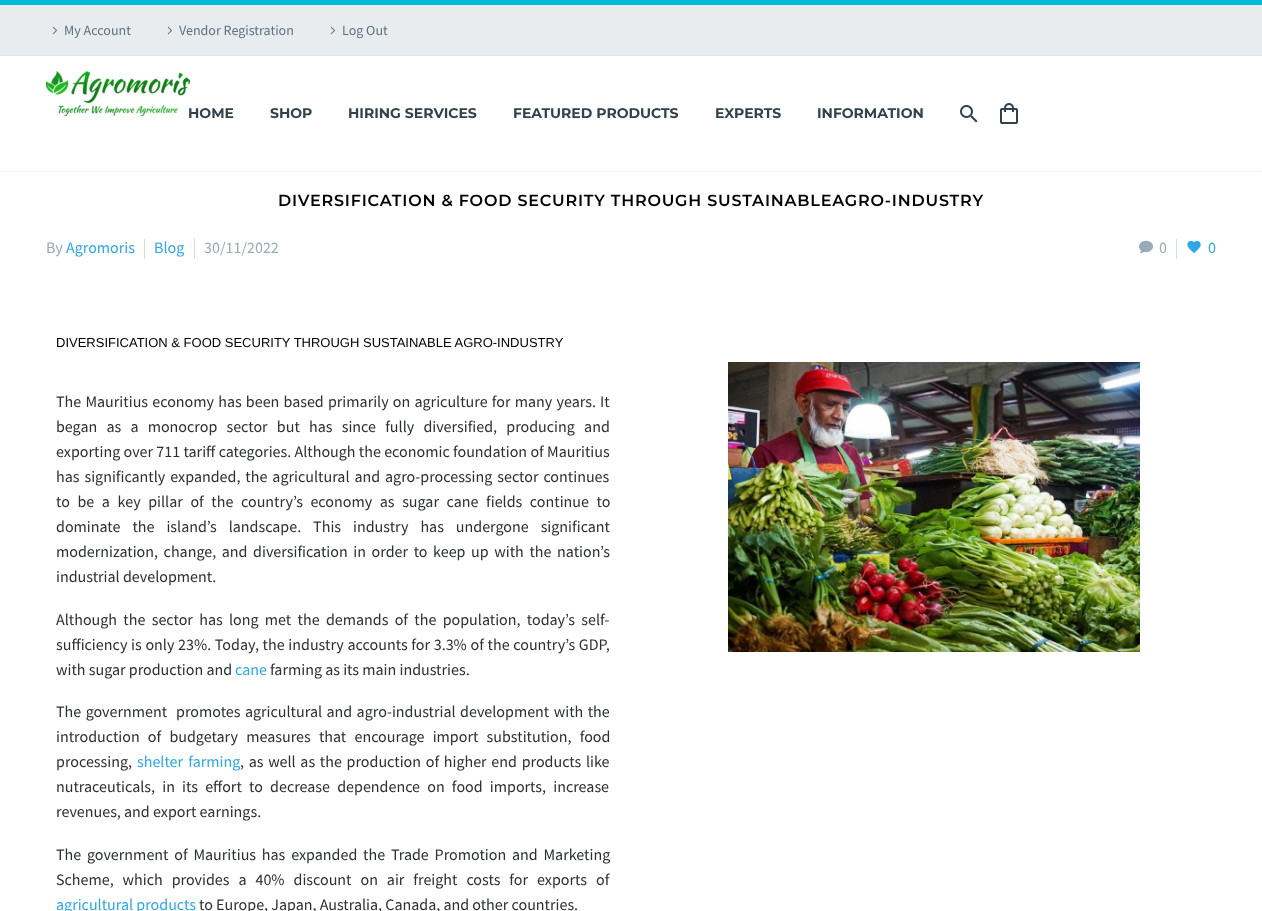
<!DOCTYPE html>
<meta charset="utf-8">
<style>body { margin: 0 } canvas { display: block }</style>
<canvas id="canvas" width="1262" height="911"></canvas>
<img id="img1" src="img_01.png" hidden>
<img id="img2" src="img_02.png" hidden>
<img id="img3" src="img_03.png" hidden>
<img id="img4" src="img_04.png" hidden>
<img id="img5" src="img_05.png" hidden>
<img id="img6" src="img_06.png" hidden>
<img id="img7" src="img_07.png" hidden>
<script>
window.onload = function () {
	const canvas = document.getElementById("canvas");
	const ctx = canvas.getContext("2d");
	ctx.miterLimit = 4;
	ctx.fontKerning = "normal";
	function txt(s, x, y) {
		ctx.fillText(s, x, y);
	}
	function fill(x, y, w, h) {
		ctx.fillRect(x, y, w, h);
	}
	function img(id, x, y, w, h) {
		ctx.drawImage(document.getElementById(id), x, y, w, h);
	}

	ctx.fillStyle = "#FFFFFF";
	fill(0, 0, 1262, 911);
	ctx.save();
	ctx.beginPath();
	ctx.rect(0, 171, 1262, 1);
	ctx.clip();
	ctx.fillStyle = "rgba(56, 69, 84, 0.2)";
	ctx.filter = "blur(1px)";
	ctx.beginPath();
	ctx.rect(0, 56, 1262, 115);
	ctx.fill();
	ctx.filter = "none";
	ctx.restore();
	ctx.fillStyle = "#E8ECEF";
	fill(0, 5, 1262, 50);
	ctx.fillStyle = "#00BCD4";
	fill(0, 0, 1262, 5);
	ctx.fillStyle = "#DFE5E8";
	fill(0, 55, 1262, 1);
	img("img1", 52, 26, 5, 9);
	img("img1", 167, 26, 5, 9);
	img("img1", 330, 26, 5, 9);
	img("img2", 46, 71, 144, 45);
	img("img3", 960, 105, 18, 18);
	img("img4", 1000, 103, 18, 21);
	ctx.fillStyle = "#D4DEE1";
	fill(144, 239, 1, 20);
	fill(194, 239, 1, 20);
	img("img5", 1139, 240, 14, 13);
	fill(1176, 239, 1, 20);
	img("img6", 1187, 240, 14, 13);
	img("img7", 728, 362, 412, 290);
	ctx.font = "14px Source Sans Pro";
	ctx.fillStyle = "#5F727F";
	txt("My Account", 64, 35);
	txt("Vendor Registration", 179, 35);
	txt("Log Out", 342, 35);
	ctx.font = "bold 14px Montserrat";
	ctx.fillStyle = "#31424D";
	txt("HOME", 188, 118);
	txt("SHOP", 270, 118);
	txt("HIRING SERVICES", 348, 118);
	txt("FEATURED PRODUCTS", 513, 118);
	txt("EXPERTS", 715, 118);
	txt("INFORMATION", 817, 118);
	ctx.letterSpacing = "0.8px";
	ctx.font = "600 16px Montserrat";
	ctx.fillStyle = "#000000";
	txt("DIVERSIFICATION & FOOD SECURITY THROUGH SUSTAINABLEAGRO-INDUSTRY", 278, 206);
	ctx.letterSpacing = "0px";
	ctx.font = "16px Source Sans Pro";
	ctx.fillStyle = "#99A9B5";
	txt("By", 46, 253);
	ctx.fillStyle = "#2EA7E7";
	txt("Agromoris", 66, 253);
	txt("Blog", 154, 253);
	ctx.fillStyle = "#99A9B5";
	txt("30/11/2022", 204, 253);
	txt("0", 1159, 253);
	ctx.fillStyle = "#2EA7E7";
	txt("0", 1208, 253);
	ctx.font = "13px Liberation Sans";
	ctx.fillStyle = "#000000";
	txt("DIVERSIFICATION & FOOD SECURITY THROUGH SUSTAINABLE AGRO-INDUSTRY", 56, 347);
	ctx.wordSpacing = "1px";
	ctx.font = "16px Source Sans Pro";
	ctx.fillStyle = "#2A3034";
	txt("The Mauritius economy has been based primarily on agriculture for many years. It", 56, 407);
	ctx.wordSpacing = "6px";
	txt("began as a monocrop sector but has since fully diversified, producing and", 56, 432);
	ctx.wordSpacing = "0.1px";
	txt("exporting over 711 tariff categories. Although the economic foundation of Mauritius", 56, 457);
	ctx.wordSpacing = "1.75px";
	txt("has significantly expanded, the agricultural and agro-processing sector continues", 56, 482);
	ctx.wordSpacing = "4.4px";
	txt("to be a key pillar of the country’s economy as sugar cane fields continue to", 56, 507);
	ctx.wordSpacing = "8.75px";
	txt("dominate the island’s landscape. This industry has undergone significant", 56, 532);
	ctx.wordSpacing = "2.4px";
	txt("modernization, change, and diversification in order to keep up with the nation’s", 56, 557);
	ctx.wordSpacing = "0px";
	txt("industrial development.", 56, 582);
	ctx.wordSpacing = "3.1px";
	txt("Although the sector has long met the demands of the population, today’s self-", 56, 625);
	ctx.wordSpacing = "0.5px";
	txt("sufficiency is only 23%. Today, the industry accounts for 3.3% of the country’s GDP,", 56, 650);
	ctx.wordSpacing = "0px";
	txt("with sugar production and", 56, 675);
	ctx.fillStyle = "#2EA7E7";
	txt("cane", 235, 675);
	ctx.fillStyle = "#2A3034";
	txt("farming as its main industries.", 270, 675);
	ctx.wordSpacing = "1.25px";
	txt("The government  promotes agricultural and agro-industrial development with the", 56, 717);
	ctx.wordSpacing = "5px";
	txt("introduction of budgetary measures that encourage import substitution, food", 56, 742);
	ctx.wordSpacing = "0px";
	txt("processing,", 56, 767);
	ctx.wordSpacing = "2px";
	ctx.fillStyle = "#2EA7E7";
	txt("shelter farming", 137, 767);
	ctx.wordSpacing = "1.5px";
	ctx.fillStyle = "#2A3034";
	txt(", as well as the production of higher end products like", 240, 767);
	ctx.wordSpacing = "4px";
	txt("nutraceuticals, in its effort to decrease dependence on food imports, increase", 56, 792);
	ctx.wordSpacing = "0px";
	txt("revenues, and export earnings.", 56, 817);
	ctx.wordSpacing = "2.6px";
	txt("The government of Mauritius has expanded the Trade Promotion and Marketing", 56, 860);
	ctx.wordSpacing = "5.75px";
	txt("Scheme, which provides a 40% discount on air freight costs for exports of", 56, 885);
	ctx.wordSpacing = "0px";
	ctx.fillStyle = "#2EA7E7";
	txt("agricultural products", 56, 910);
	ctx.fillStyle = "#2A3034";
	txt("to Europe, Japan, Australia, Canada, and other countries.", 199, 910);
};
</script>
